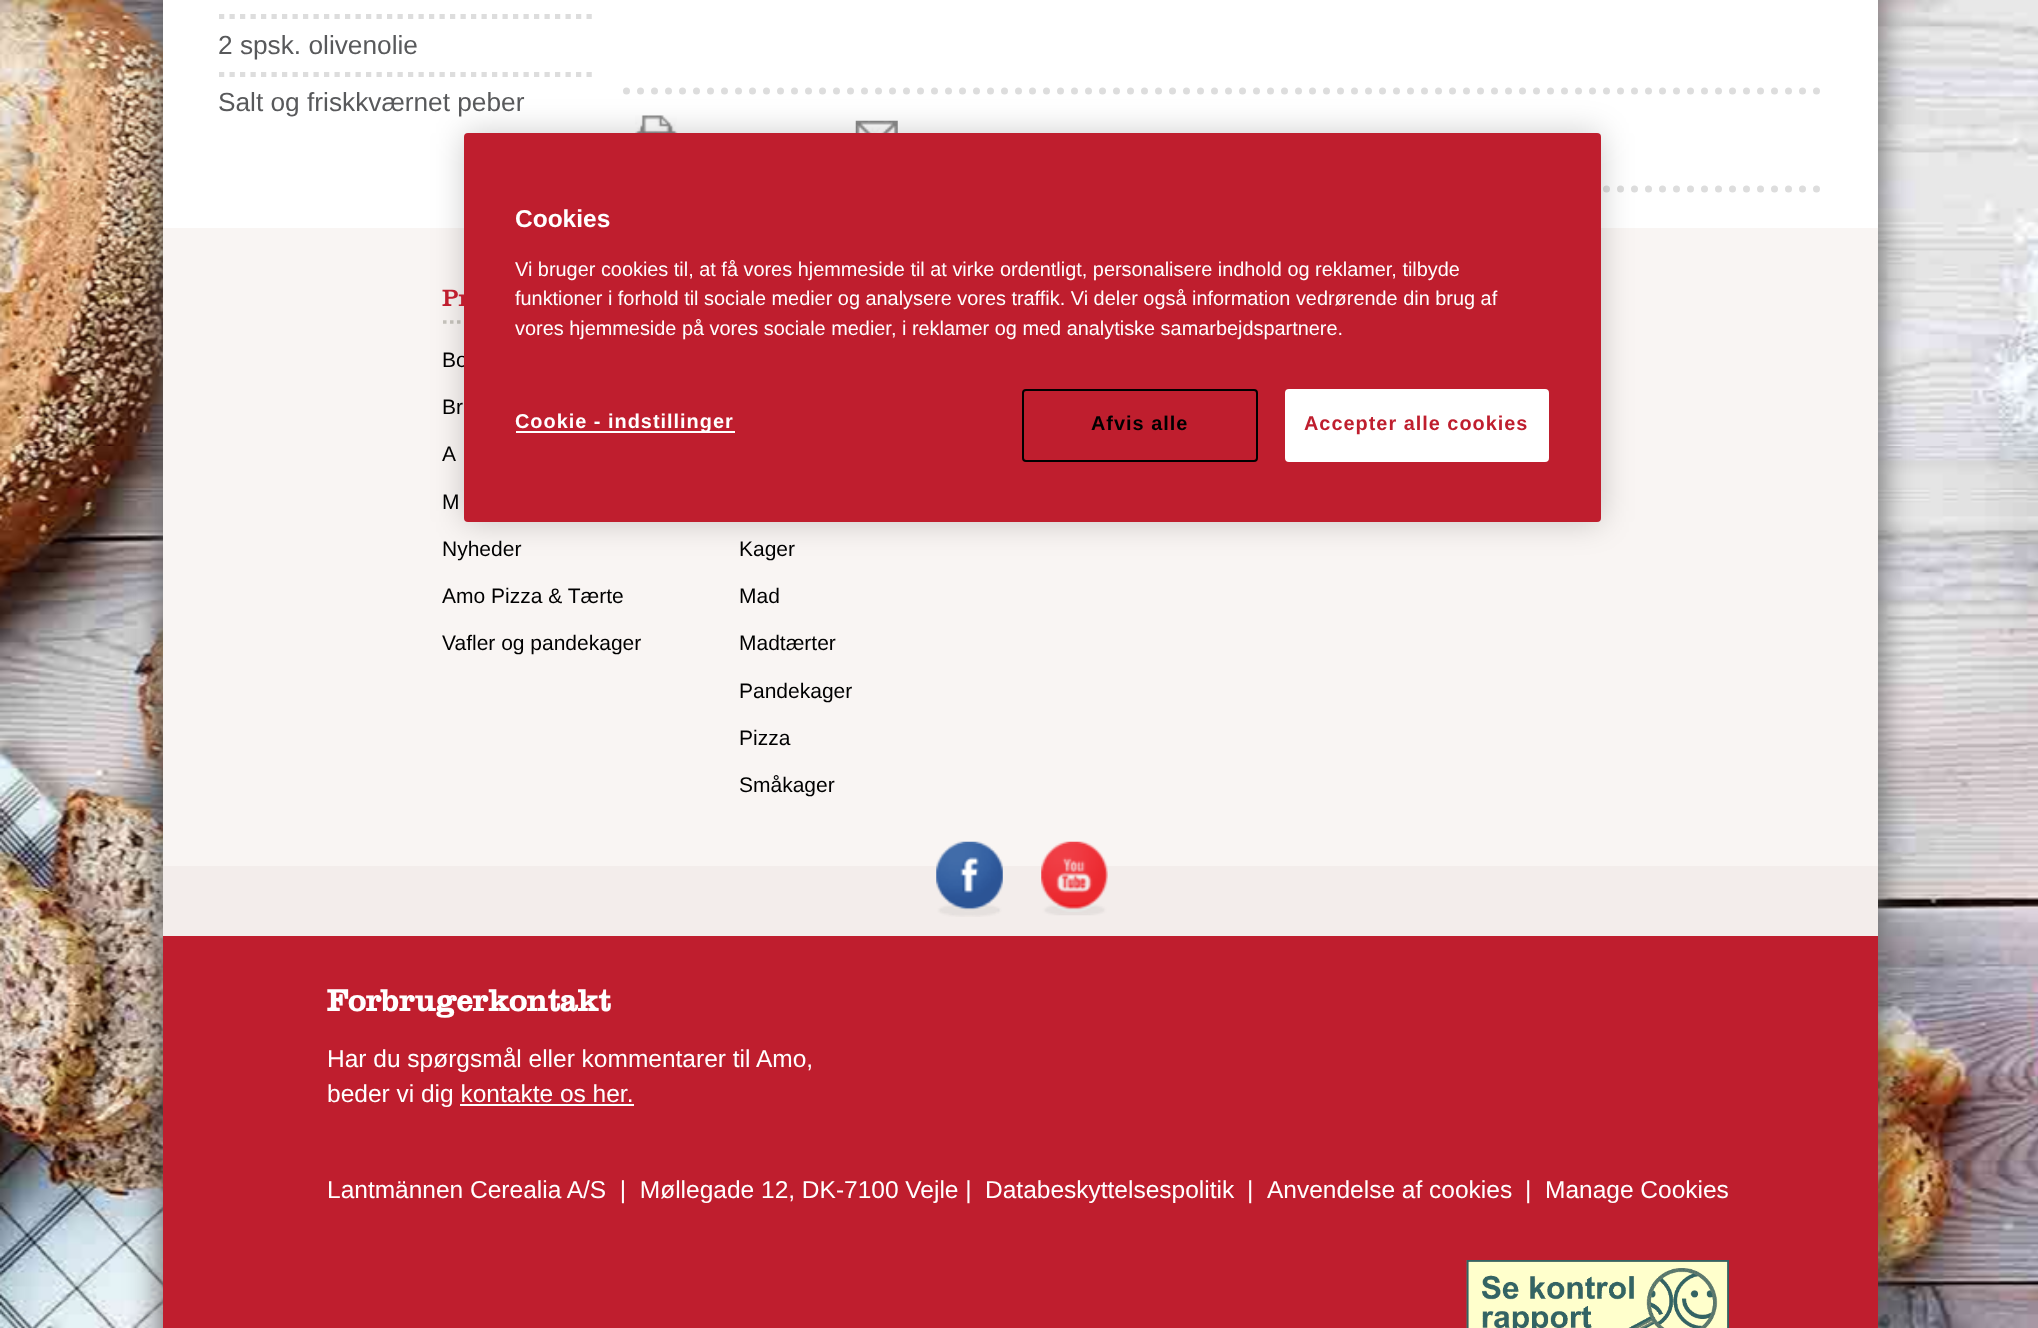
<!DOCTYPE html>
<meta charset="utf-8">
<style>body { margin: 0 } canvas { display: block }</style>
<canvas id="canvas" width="2038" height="1328"></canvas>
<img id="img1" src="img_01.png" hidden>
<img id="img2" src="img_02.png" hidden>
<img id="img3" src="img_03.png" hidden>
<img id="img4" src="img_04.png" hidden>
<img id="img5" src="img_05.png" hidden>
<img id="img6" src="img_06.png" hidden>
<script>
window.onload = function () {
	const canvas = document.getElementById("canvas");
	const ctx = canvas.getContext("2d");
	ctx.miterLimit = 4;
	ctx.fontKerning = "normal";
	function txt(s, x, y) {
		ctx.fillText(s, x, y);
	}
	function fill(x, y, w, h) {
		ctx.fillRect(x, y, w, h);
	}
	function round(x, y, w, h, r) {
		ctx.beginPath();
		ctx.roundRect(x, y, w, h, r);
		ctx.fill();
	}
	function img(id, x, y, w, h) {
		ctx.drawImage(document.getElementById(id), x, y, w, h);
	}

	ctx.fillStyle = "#FFFFFF";
	fill(0, 0, 2038, 1328);
	img("img1", 0, 0, 2038, 1328);
	ctx.fillStyle = "#555555";
	ctx.filter = "blur(17.5px)";
	ctx.beginPath();
	ctx.rect(163, -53, 1715, 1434);
	ctx.fill();
	ctx.filter = "none";
	ctx.fillStyle = "#FFFFFF";
	fill(163, 0, 1715, 228);
	ctx.beginPath();
	ctx.moveTo(219, 16.5);
	ctx.lineTo(593, 16.5);
	ctx.strokeStyle = "#DDDDDD";
	ctx.lineWidth = 5.2;
	ctx.setLineDash([5.25, 5.25]);
	ctx.stroke();
	ctx.beginPath();
	ctx.moveTo(219, 74.5);
	ctx.lineTo(593, 74.5);
	ctx.stroke();
	ctx.beginPath();
	ctx.moveTo(626.5, 91);
	ctx.lineTo(1820, 91);
	ctx.lineWidth = 7;
	ctx.lineCap = "round";
	ctx.setLineDash([0, 14]);
	ctx.stroke();
	ctx.beginPath();
	ctx.moveTo(626.5, 189);
	ctx.lineTo(1820, 189);
	ctx.stroke();
	img("img2", 635, 115, 43, 18);
	img("img3", 855, 120, 43, 13);
	ctx.fillStyle = "#BF1E2E";
	fill(163, 936, 1715, 392);
	ctx.fillStyle = "#F9F5F3";
	fill(163, 228, 1715, 638);
	ctx.beginPath();
	ctx.moveTo(443, 322);
	ctx.lineTo(565, 322);
	ctx.strokeStyle = "#C8C5BE";
	ctx.lineWidth = 3.5;
	ctx.lineCap = "butt";
	ctx.setLineDash([3.5, 3.5]);
	ctx.stroke();
	ctx.fillStyle = "#F3EDEB";
	fill(163, 866, 1715, 70);
	img("img4", 936, 841, 67, 76);
	img("img5", 1041, 841, 67, 75);
	ctx.fillStyle = "#FFFFFF";
	fill(460, 1104, 174, 2);
	img("img6", 1466, 1260, 263, 68);
	ctx.fillStyle = "rgba(0, 0, 0, 0.2)";
	ctx.filter = "blur(16px)";
	ctx.beginPath();
	ctx.roundRect(464, 133, 1137, 389, 4);
	ctx.fill();
	ctx.filter = "none";
	ctx.font = "26.25px Liberation Sans";
	ctx.fillStyle = "#58595B";
	txt("2 spsk. olivenolie", 218, 54);
	txt("Salt og friskkværnet peber", 218, 111);
	ctx.font = "24.5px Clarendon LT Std";
	ctx.fillStyle = "#BF1E2E";
	txt("Pr", 442, 306);
	ctx.font = "21px Liberation Sans";
	ctx.fillStyle = "#000000";
	txt("Bo", 442, 367);
	txt("Br", 442, 414);
	txt("A", 442, 461);
	txt("M", 442, 509);
	txt("Nyheder", 442, 556);
	txt("Amo Pizza & Tærte", 442, 603);
	txt("Vafler og pandekager", 442, 650);
	txt("Kager", 739, 556);
	txt("Mad", 739, 603);
	txt("Madtærter", 739, 650);
	txt("Pandekager", 739, 698);
	txt("Pizza", 739, 745);
	txt("Småkager", 739, 792);
	ctx.font = "bold 31.5px Clarendon LT Std";
	ctx.fillStyle = "#FFFFFF";
	txt("Forbrugerkontakt", 327, 1011);
	ctx.font = "24.5px Liberation Sans";
	txt("Har du spørgsmål eller kommentarer til Amo,", 327, 1067);
	txt("beder vi dig kontakte os her.", 327, 1102);
	txt("Lantmännen Cerealia A/S  |  Møllegade 12, DK-7100 Vejle |", 327, 1198);
	txt("Databeskyttelsespolitik", 985, 1198);
	txt("|", 1247, 1198);
	txt("Anvendelse af cookies", 1267, 1198);
	txt("|", 1525, 1198);
	txt("Manage Cookies", 1545, 1198);
	ctx.fillStyle = "#BF1E2E";
	round(464, 133, 1137, 389, 4);
	ctx.font = "bold 24.5px Liberation Sans";
	ctx.fillStyle = "#FFFFFF";
	txt("Cookies", 515, 227);
	ctx.font = "19.9px Liberation Sans";
	txt("Vi bruger cookies til, at få vores hjemmeside til at virke ordentligt, personalisere indhold og reklamer, tilbyde", 515, 276);
	txt("funktioner i forhold til sociale medier og analysere vores traffik. Vi deler også information vedrørende din brug af", 515, 305);
	txt("vores hjemmeside på vores sociale medier, i reklamer og med analytiske samarbejdspartnere.", 515, 335);
	fill(516, 431, 219, 2);
	ctx.letterSpacing = "1px";
	ctx.font = "bold 19.9px Liberation Sans";
	txt("Cookie - indstillinger", 515, 428);
	ctx.beginPath();
	ctx.roundRect(1023, 390, 234, 71, 3);
	ctx.strokeStyle = "#000000";
	ctx.lineWidth = 2;
	ctx.setLineDash([]);
	ctx.stroke();
	ctx.fillStyle = "#000000";
	txt("Afvis alle", 1091, 430);
	ctx.fillStyle = "#FFFFFF";
	ctx.beginPath();
	ctx.roundRect(1286, 390, 262, 71, 3);
	ctx.fill();
	ctx.strokeStyle = "#FFFFFF";
	ctx.stroke();
	ctx.fillStyle = "#BF1E2E";
	txt("Accepter alle cookies", 1304, 430);
};
</script>
